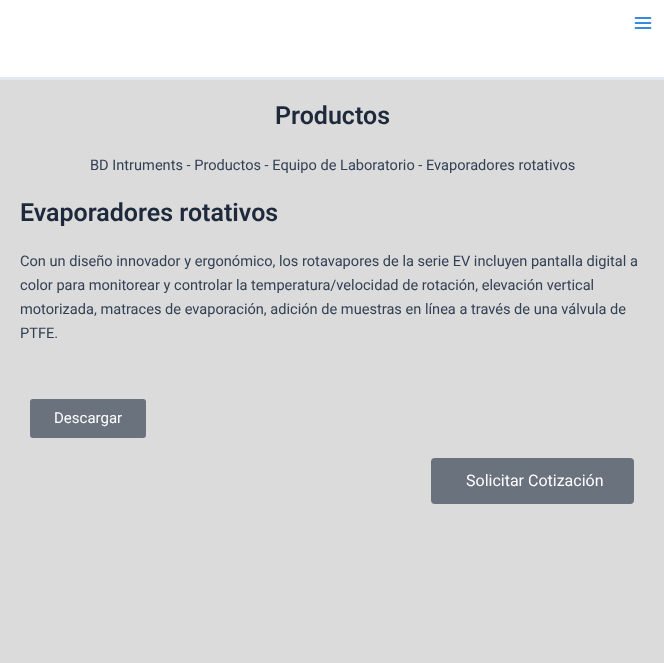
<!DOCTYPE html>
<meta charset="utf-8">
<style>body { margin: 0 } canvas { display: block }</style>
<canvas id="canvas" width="664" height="663"></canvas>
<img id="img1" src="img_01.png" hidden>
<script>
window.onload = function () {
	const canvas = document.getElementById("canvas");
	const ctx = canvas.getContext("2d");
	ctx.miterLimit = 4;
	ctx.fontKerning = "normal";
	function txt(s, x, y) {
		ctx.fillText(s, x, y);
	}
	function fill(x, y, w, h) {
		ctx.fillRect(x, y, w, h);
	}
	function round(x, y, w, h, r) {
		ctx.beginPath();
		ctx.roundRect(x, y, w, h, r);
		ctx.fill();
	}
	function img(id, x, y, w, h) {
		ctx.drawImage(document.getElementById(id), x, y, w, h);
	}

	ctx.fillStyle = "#DBDBDB";
	fill(0, 0, 664, 663);
	ctx.fillStyle = "#FFFFFF";
	fill(0, 0, 664, 77);
	ctx.fillStyle = "#E2E8F0";
	fill(0, 77, 664, 3);
	img("img1", 634, 17, 18, 12);
	ctx.fillStyle = "#69727D";
	round(30, 399, 116, 39, 3);
	round(431, 458, 203, 46, 4);
	ctx.font = "600 25px Roboto";
	ctx.fillStyle = "#1E293B";
	txt("Productos", 275, 124);
	ctx.font = "14.6px Roboto";
	ctx.fillStyle = "#334155";
	txt("BD Intruments - Productos - Equipo de Laboratorio - Evaporadores rotativos", 90, 170);
	ctx.font = "600 25px Roboto";
	ctx.fillStyle = "#1E293B";
	txt("Evaporadores rotativos", 20, 221);
	ctx.font = "14.6px Roboto";
	ctx.fillStyle = "#334155";
	txt("Con un diseño innovador y ergonómico, los rotavapores de la serie EV incluyen pantalla digital a", 20, 266);
	txt("color para monitorear y controlar la temperatura/velocidad de rotación, elevación vertical", 20, 290);
	txt("motorizada, matraces de evaporación, adición de muestras en línea a través de una válvula de", 20, 314);
	txt("PTFE.", 20, 338);
	ctx.font = "15px Roboto";
	ctx.fillStyle = "#FFFFFF";
	txt("Descargar", 54, 423);
	ctx.font = "16px Roboto";
	txt("Solicitar Cotización", 466, 486);
};
</script>
